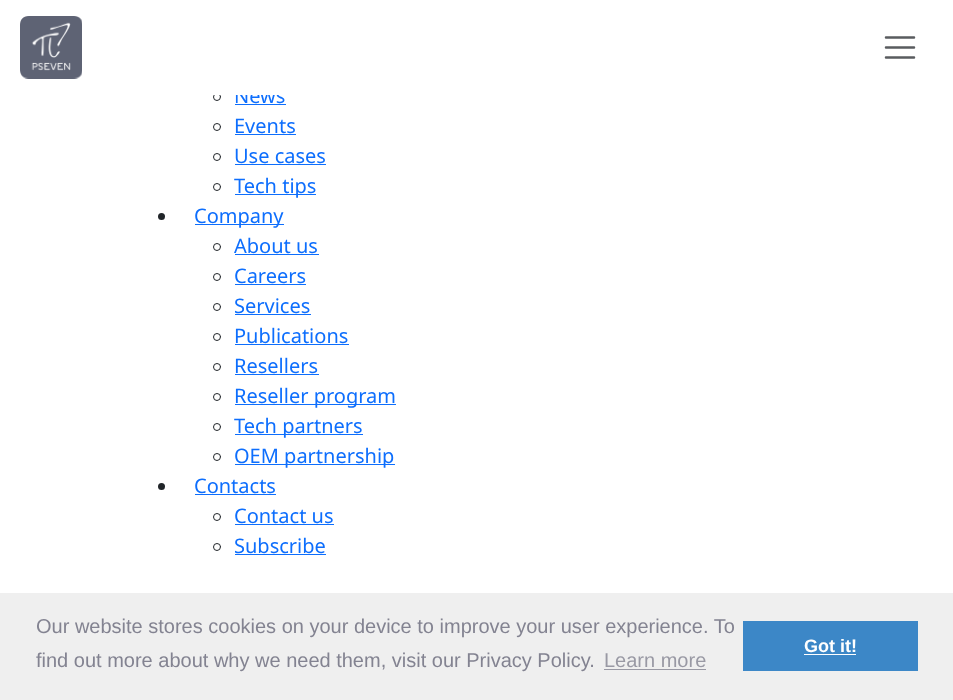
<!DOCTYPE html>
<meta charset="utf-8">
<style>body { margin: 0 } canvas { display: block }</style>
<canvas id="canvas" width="953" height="700"></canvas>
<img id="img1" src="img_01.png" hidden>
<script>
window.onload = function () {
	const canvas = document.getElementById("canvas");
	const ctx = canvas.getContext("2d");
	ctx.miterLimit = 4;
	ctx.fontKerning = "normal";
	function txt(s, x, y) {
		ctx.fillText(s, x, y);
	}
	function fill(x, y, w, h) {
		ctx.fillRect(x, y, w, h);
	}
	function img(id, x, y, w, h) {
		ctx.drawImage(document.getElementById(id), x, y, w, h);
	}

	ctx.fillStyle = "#FFFFFF";
	fill(0, 0, 953, 700);
	img("img1", 20, 16, 62, 63);
	ctx.beginPath();
	ctx.moveTo(886, 37.5);
	ctx.lineTo(914, 37.5);
	ctx.moveTo(886, 47.5);
	ctx.lineTo(914, 47.5);
	ctx.moveTo(886, 57.5);
	ctx.lineTo(914, 57.5);
	ctx.strokeStyle = "#595C5F";
	ctx.lineWidth = 2.5;
	ctx.lineCap = "round";
	ctx.stroke();
	ctx.beginPath();
	ctx.arc(217, 97, 3.5, 0, Math.PI * 2);
	ctx.strokeStyle = "#212529";
	ctx.lineWidth = 1;
	ctx.stroke();
	ctx.fillStyle = "#0D6EFD";
	fill(235, 104, 51, 1);
	ctx.beginPath();
	ctx.arc(217, 127, 3.5, 0, Math.PI * 2);
	ctx.stroke();
	fill(235, 134, 61, 1);
	ctx.beginPath();
	ctx.arc(217, 157, 3.5, 0, Math.PI * 2);
	ctx.stroke();
	fill(235, 164, 91, 1);
	ctx.beginPath();
	ctx.arc(217, 187, 3.5, 0, Math.PI * 2);
	ctx.stroke();
	fill(235, 194, 81, 1);
	ctx.fillStyle = "#212529";
	ctx.beginPath();
	ctx.arc(161.5, 216.5, 3.5, 0, Math.PI * 2);
	ctx.fill();
	ctx.fillStyle = "#0D6EFD";
	fill(195, 224, 89, 1);
	ctx.beginPath();
	ctx.arc(217, 247, 3.5, 0, Math.PI * 2);
	ctx.stroke();
	fill(235, 254, 84, 1);
	ctx.beginPath();
	ctx.arc(217, 277, 3.5, 0, Math.PI * 2);
	ctx.stroke();
	fill(235, 284, 71, 1);
	ctx.beginPath();
	ctx.arc(217, 307, 3.5, 0, Math.PI * 2);
	ctx.stroke();
	fill(235, 314, 76, 1);
	ctx.beginPath();
	ctx.arc(217, 337, 3.5, 0, Math.PI * 2);
	ctx.stroke();
	fill(235, 344, 114, 1);
	ctx.beginPath();
	ctx.arc(217, 367, 3.5, 0, Math.PI * 2);
	ctx.stroke();
	fill(235, 374, 84, 1);
	ctx.beginPath();
	ctx.arc(217, 397, 3.5, 0, Math.PI * 2);
	ctx.stroke();
	fill(235, 404, 161, 1);
	ctx.beginPath();
	ctx.arc(217, 427, 3.5, 0, Math.PI * 2);
	ctx.stroke();
	fill(235, 434, 128, 1);
	ctx.beginPath();
	ctx.arc(217, 457, 3.5, 0, Math.PI * 2);
	ctx.stroke();
	fill(235, 464, 160, 1);
	ctx.fillStyle = "#212529";
	ctx.beginPath();
	ctx.arc(161.5, 486.5, 3.5, 0, Math.PI * 2);
	ctx.fill();
	ctx.fillStyle = "#0D6EFD";
	fill(195, 494, 81, 1);
	ctx.beginPath();
	ctx.arc(217, 517, 3.5, 0, Math.PI * 2);
	ctx.stroke();
	fill(235, 524, 99, 1);
	ctx.beginPath();
	ctx.arc(217, 547, 3.5, 0, Math.PI * 2);
	ctx.stroke();
	fill(235, 554, 91, 1);
	ctx.fillStyle = "#EFEFEF";
	fill(0, 593, 953, 107);
	ctx.fillStyle = "#9999A4";
	fill(604, 669, 102, 1);
	ctx.fillStyle = "#3C87C7";
	fill(743, 621, 175, 50);
	ctx.fillStyle = "#FFFFFF";
	fill(804, 654, 52, 1);
	ctx.font = "20px Noto Sans";
	ctx.fillStyle = "#0D6EFD";
	txt("News", 234, 103);
	ctx.fillStyle = "#FFFFFF";
	fill(213, 88, 72, 7);
	ctx.fillStyle = "#0D6EFD";
	txt("Events", 234, 133);
	txt("Use cases", 234, 163);
	txt("Tech tips", 234, 193);
	txt("Company", 194, 223);
	txt("About us", 234, 253);
	txt("Careers", 234, 283);
	txt("Services", 234, 313);
	txt("Publications", 234, 343);
	txt("Resellers", 234, 373);
	txt("Reseller program", 234, 403);
	txt("Tech partners", 234, 433);
	txt("OEM partnership", 234, 463);
	txt("Contacts", 194, 493);
	txt("Contact us", 234, 523);
	txt("Subscribe", 234, 553);
	ctx.font = "20px Liberation Sans";
	ctx.fillStyle = "#838391";
	txt("Our website stores cookies on your device to improve your user experience. To", 36, 633);
	txt("find out more about why we need them, visit our Privacy Policy.", 36, 667);
	ctx.fillStyle = "#9999A4";
	txt("Learn more", 604, 667);
	ctx.font = "bold 18px Liberation Sans";
	ctx.fillStyle = "#FFFFFF";
	txt("Got it!", 804, 652);
};
</script>
